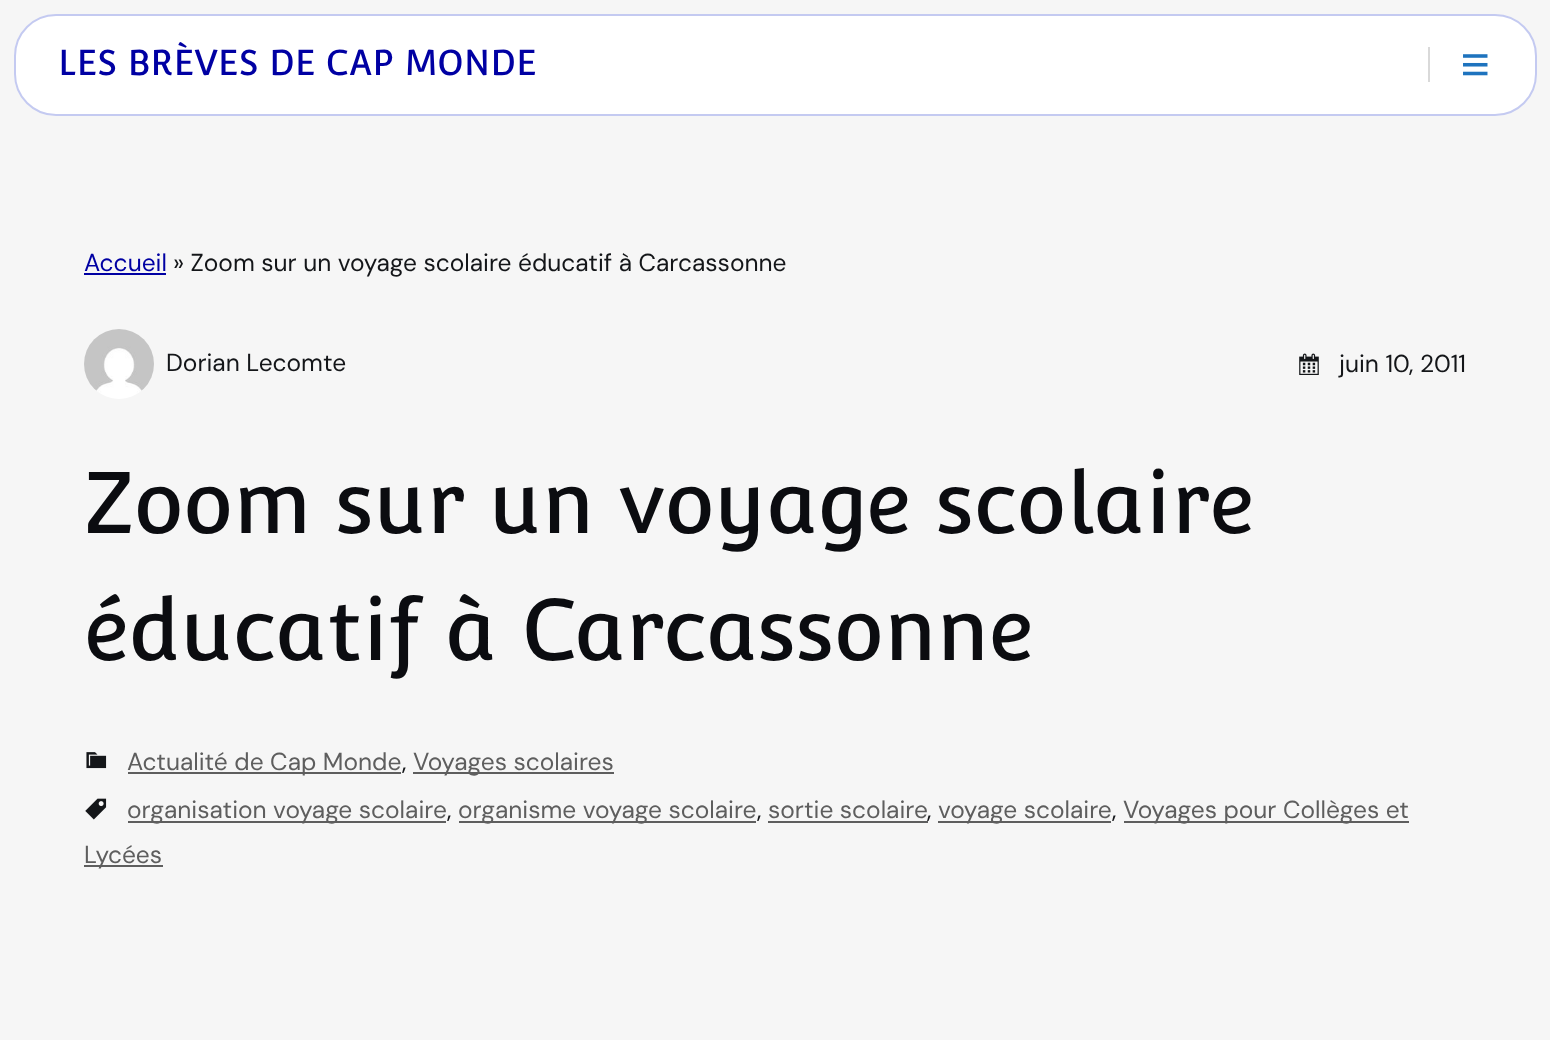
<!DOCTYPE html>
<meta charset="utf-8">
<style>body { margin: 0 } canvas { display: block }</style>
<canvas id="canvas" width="1550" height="1040"></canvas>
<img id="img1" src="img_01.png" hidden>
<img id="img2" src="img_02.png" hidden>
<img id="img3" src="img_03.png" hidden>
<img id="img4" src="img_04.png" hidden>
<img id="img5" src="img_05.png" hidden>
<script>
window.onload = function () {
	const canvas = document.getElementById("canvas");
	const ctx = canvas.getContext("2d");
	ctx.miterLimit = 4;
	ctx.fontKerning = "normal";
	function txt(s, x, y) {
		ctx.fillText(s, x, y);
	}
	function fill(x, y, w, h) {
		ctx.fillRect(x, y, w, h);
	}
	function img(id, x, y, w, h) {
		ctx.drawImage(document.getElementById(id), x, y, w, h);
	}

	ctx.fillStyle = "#F6F6F6";
	fill(0, 0, 1550, 1040);
	ctx.fillStyle = "#FFFFFF";
	ctx.beginPath();
	ctx.roundRect(15, 15, 1521, 100, 41);
	ctx.fill();
	ctx.strokeStyle = "#C4CAF1";
	ctx.lineWidth = 2;
	ctx.stroke();
	ctx.fillStyle = "#D9D9D9";
	fill(1428, 47, 2, 35);
	img("img1", 1463, 54, 25, 22);
	ctx.fillStyle = "#0000A3";
	fill(84, 273, 82, 2);
	img("img2", 84, 329, 70, 70);
	img("img3", 1299, 353, 20, 22);
	img("img4", 86, 752, 21, 17);
	ctx.fillStyle = "#5E5E5E";
	fill(128, 772, 273, 2);
	fill(413, 772, 201, 2);
	img("img5", 85, 798, 22, 22);
	fill(128, 821, 318, 2);
	fill(459, 821, 297, 2);
	fill(768, 821, 160, 2);
	fill(938, 821, 173, 2);
	fill(1124, 821, 285, 2);
	fill(84, 865, 79, 2);
	ctx.font = "35px Convergence";
	ctx.fillStyle = "#0000A3";
	txt("LES BRÈVES DE CAP MONDE", 58, 75);
	ctx.font = "24.5px DM Sans";
	txt("Accueil", 84, 271);
	ctx.fillStyle = "#141619";
	txt("» Zoom sur un voyage scolaire éducatif à Carcassonne", 173, 271);
	txt("Dorian Lecomte", 166, 371);
	txt("juin 10, 2011", 1339, 372);
	ctx.font = "84.75px Convergence";
	ctx.fillStyle = "#0B0C10";
	txt("Zoom sur un voyage scolaire", 84, 533);
	txt("éducatif à Carcassonne", 84, 660);
	ctx.font = "24.5px DM Sans";
	ctx.fillStyle = "#5E5E5E";
	txt("Actualité de Cap Monde", 127, 770);
	ctx.fillStyle = "#141619";
	txt(",", 402, 770);
	ctx.fillStyle = "#5E5E5E";
	txt("Voyages scolaires", 413, 770);
	txt("organisation voyage scolaire", 127, 818);
	ctx.fillStyle = "#141619";
	txt(",", 447, 818);
	ctx.fillStyle = "#5E5E5E";
	txt("organisme voyage scolaire", 458, 818);
	ctx.fillStyle = "#141619";
	txt(",", 757, 818);
	ctx.fillStyle = "#5E5E5E";
	txt("sortie scolaire", 768, 818);
	ctx.fillStyle = "#141619";
	txt(",", 927, 818);
	ctx.fillStyle = "#5E5E5E";
	txt("voyage scolaire", 938, 818);
	ctx.fillStyle = "#141619";
	txt(",", 1112, 818);
	ctx.fillStyle = "#5E5E5E";
	txt("Voyages pour Collèges et", 1123, 818);
	txt("Lycées", 84, 863);
};
</script>
